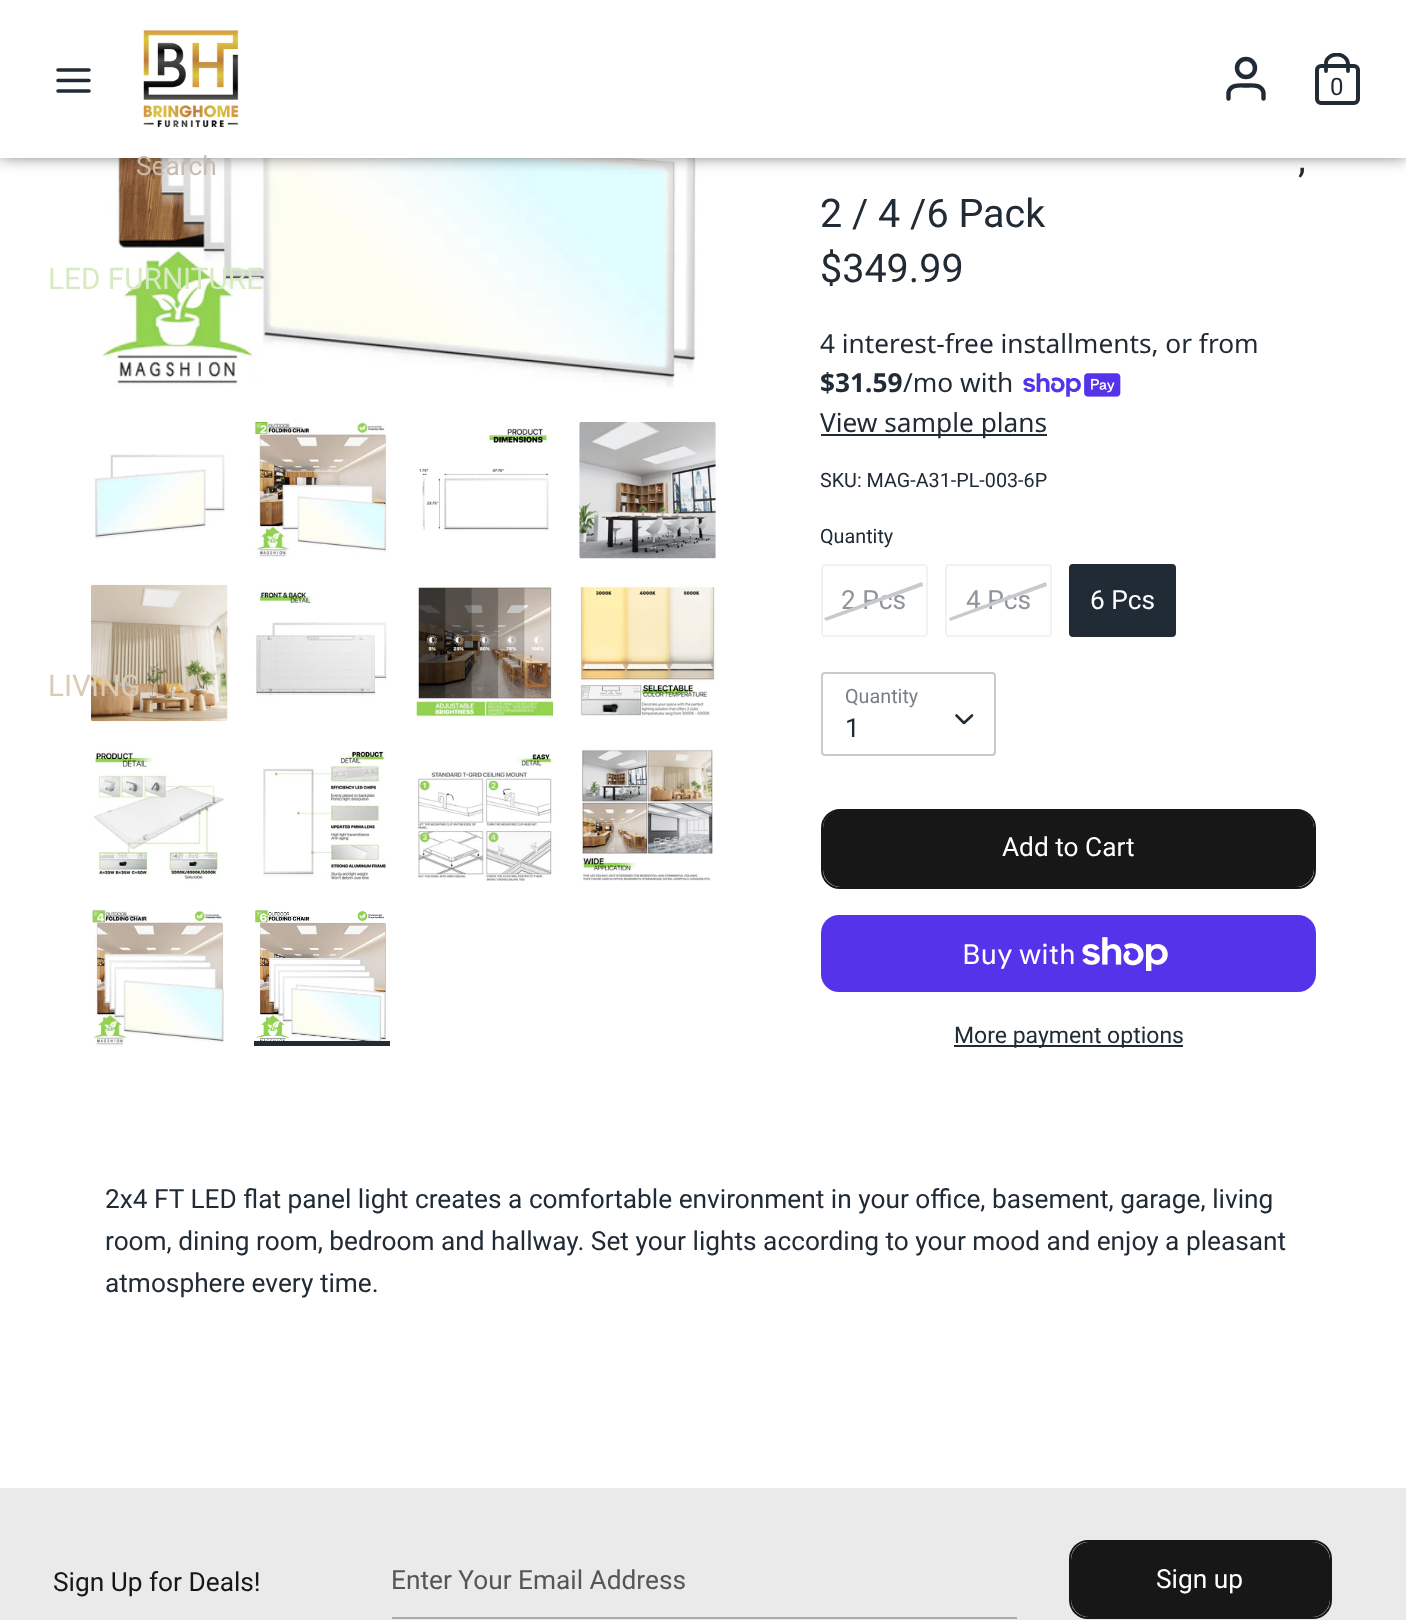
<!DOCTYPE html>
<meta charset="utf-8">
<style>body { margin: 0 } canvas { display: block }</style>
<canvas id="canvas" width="1406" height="1620"></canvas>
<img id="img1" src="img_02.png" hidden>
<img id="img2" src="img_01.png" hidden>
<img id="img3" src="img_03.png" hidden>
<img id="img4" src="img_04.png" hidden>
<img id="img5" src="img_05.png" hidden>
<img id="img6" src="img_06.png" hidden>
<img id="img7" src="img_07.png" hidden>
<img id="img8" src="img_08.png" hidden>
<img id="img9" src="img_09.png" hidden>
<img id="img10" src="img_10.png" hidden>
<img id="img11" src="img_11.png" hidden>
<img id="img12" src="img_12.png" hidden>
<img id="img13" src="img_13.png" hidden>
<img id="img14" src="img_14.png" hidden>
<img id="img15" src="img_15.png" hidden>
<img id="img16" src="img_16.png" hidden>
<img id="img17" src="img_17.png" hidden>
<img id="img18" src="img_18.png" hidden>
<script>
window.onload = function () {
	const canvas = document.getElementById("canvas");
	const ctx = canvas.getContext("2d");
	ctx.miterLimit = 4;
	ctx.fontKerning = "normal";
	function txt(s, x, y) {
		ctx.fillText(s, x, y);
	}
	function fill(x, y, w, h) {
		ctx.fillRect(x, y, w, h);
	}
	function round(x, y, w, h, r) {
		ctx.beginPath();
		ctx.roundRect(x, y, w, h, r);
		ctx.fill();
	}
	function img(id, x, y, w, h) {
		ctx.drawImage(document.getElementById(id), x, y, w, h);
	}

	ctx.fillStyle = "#FFFFFF";
	fill(0, 0, 1406, 1620);
	img("img1", 102, 158, 595, 230);
	ctx.fillStyle = "rgba(0, 0, 0, 0.75)";
	ctx.filter = "blur(9px)";
	ctx.beginPath();
	ctx.rect(0, -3, 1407, 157);
	ctx.fill();
	ctx.filter = "none";
	ctx.fillStyle = "#FFFFFF";
	fill(0, 0, 1406, 158);
	ctx.beginPath();
	ctx.moveTo(58, 80.5);
	ctx.lineTo(89, 80.5);
	ctx.moveTo(58, 70);
	ctx.lineTo(89, 70);
	ctx.moveTo(58, 91);
	ctx.lineTo(89, 91);
	ctx.strokeStyle = "#212B36";
	ctx.lineWidth = 3.5;
	ctx.lineCap = "round";
	ctx.stroke();
	img("img2", 143, 30, 96, 98);
	ctx.beginPath();
	ctx.moveTo(1263.5, 98.5);
	ctx.lineTo(1263.5, 92.5);
	ctx.bezierCurveTo(1261.5, 84, 1252.5, 85.5, 1246, 85.5);
	ctx.bezierCurveTo(1239.5, 85.5, 1230.5, 84, 1228.5, 92.5);
	ctx.lineTo(1228.5, 98.5);
	ctx.lineWidth = 4.4;
	ctx.stroke();
	ctx.beginPath();
	ctx.arc(1246, 68, 9, 0, Math.PI * 2);
	ctx.stroke();
	ctx.beginPath();
	ctx.roundRect(1317, 66, 41, 37, 4);
	ctx.lineWidth = 4;
	ctx.stroke();
	ctx.save();
	ctx.beginPath();
	ctx.rect(1311, 53, 52, 52);
	ctx.clip();
	ctx.beginPath();
	ctx.moveTo(1326, 71);
	ctx.lineTo(1326, 64);
	ctx.bezierCurveTo(1325.5, 59, 1330.5, 54.5, 1337, 54.5);
	ctx.bezierCurveTo(1343, 54.5, 1348, 59, 1348, 64);
	ctx.lineTo(1348, 71);
	ctx.lineWidth = 3.8;
	ctx.stroke();
	ctx.restore();
	img("img3", 94, 454, 131, 86);
	img("img4", 254, 422, 133, 136);
	img("img5", 419, 428, 130, 103);
	img("img6", 579, 422, 137, 137);
	img("img7", 91, 584, 137, 138);
	img("img8", 255, 591, 132, 106);
	img("img9", 416, 586, 137, 132);
	img("img10", 579, 585, 137, 131);
	img("img11", 91, 751, 133, 130);
	img("img12", 263, 751, 124, 129);
	img("img13", 417, 754, 136, 127);
	img("img14", 581, 748, 132, 133);
	img("img15", 91, 910, 133, 136);
	img("img16", 255, 910, 131, 131);
	ctx.fillStyle = "#212B36";
	fill(254, 1041, 136, 5);
	img("img17", 1023, 373, 98, 24);
	fill(821, 434, 226, 2);
	ctx.beginPath();
	ctx.roundRect(822, 565, 105, 71, 3);
	ctx.strokeStyle = "#F2F2F2";
	ctx.lineWidth = 2;
	ctx.stroke();
	ctx.beginPath();
	ctx.roundRect(946, 565, 105, 71, 3);
	ctx.stroke();
	ctx.beginPath();
	ctx.roundRect(1070, 565, 105, 71, 3);
	ctx.fill();
	ctx.strokeStyle = "#212B36";
	ctx.stroke();
	ctx.beginPath();
	ctx.roundRect(822, 673, 173, 82, 3);
	ctx.strokeStyle = "#C8CACD";
	ctx.stroke();
	ctx.beginPath();
	ctx.moveTo(956.5, 715.5);
	ctx.lineTo(964, 723);
	ctx.lineTo(972, 715.5);
	ctx.strokeStyle = "#212B36";
	ctx.lineWidth = 2.6;
	ctx.lineJoin = "round";
	ctx.stroke();
	ctx.beginPath();
	ctx.roundRect(822, 810, 493, 78, 18);
	ctx.strokeStyle = "#171718";
	ctx.lineWidth = 2;
	ctx.lineJoin = "miter";
	ctx.stroke();
	ctx.fillStyle = "#171718";
	round(823, 810, 491, 77, 18);
	ctx.fillStyle = "#5433EB";
	round(821, 915, 495, 77, 18);
	img("img18", 1082, 937, 86, 34);
	ctx.fillStyle = "#212B36";
	fill(954, 1045, 229, 2);
	ctx.fillStyle = "#EAEAEA";
	fill(0, 1488, 1406, 132);
	ctx.fillStyle = "#ABABAB";
	fill(392, 1617, 625, 2);
	ctx.beginPath();
	ctx.roundRect(1070, 1541, 261, 77, 18);
	ctx.stroke();
	ctx.fillStyle = "#171718";
	round(1071, 1542, 259, 75, 18);
	ctx.font = "24px Roboto";
	ctx.fillStyle = "#212B36";
	txt("0", 1330, 95);
	ctx.font = "26.25px Roboto";
	ctx.fillStyle = "#C8BAAF";
	txt("Search", 136, 175);
	ctx.font = "29.75px Roboto";
	ctx.fillStyle = "#D7EAC2";
	txt("LED FURNITURE", 48, 289);
	ctx.fillStyle = "#DBCAB4";
	txt("LIVING", 48, 696);
	ctx.font = "39.5px Roboto";
	ctx.fillStyle = "#212B36";
	txt(",", 1298, 172);
	txt("2 / 4 /6 Pack", 820, 227);
	txt("$349.99", 820, 282);
	ctx.font = "26.25px Noto Sans";
	txt("4 interest-free installments, or from", 820, 353);
	ctx.font = "bold 26.25px Noto Sans";
	txt("$31.59", 820, 392);
	ctx.font = "26.25px Noto Sans";
	txt("/mo with", 903, 392);
	txt("View sample plans", 820, 432);
	ctx.font = "19.75px Roboto";
	txt("SKU: MAG-A31-PL-003-6P", 820, 487);
	txt("Quantity", 820, 543);
	ctx.font = "26.25px Roboto";
	ctx.fillStyle = "#90959B";
	txt("2 Pcs", 841, 609);
	ctx.fillStyle = "#C8CACD";
	ctx.beginPath();
	ctx.moveTo(824, 618);
	ctx.lineTo(922, 582);
	ctx.lineTo(923, 586);
	ctx.lineTo(826, 621);
	ctx.closePath();
	ctx.fill();
	ctx.fillStyle = "#90959B";
	txt("4 Pcs", 966, 609);
	ctx.fillStyle = "#C8CACD";
	ctx.beginPath();
	ctx.moveTo(949, 618);
	ctx.lineTo(1046, 582);
	ctx.lineTo(1047, 586);
	ctx.lineTo(950, 621);
	ctx.closePath();
	ctx.fill();
	ctx.fillStyle = "#FFFFFF";
	txt("6 Pcs", 1090, 609);
	ctx.font = "19.75px Roboto";
	ctx.fillStyle = "#7A8086";
	txt("Quantity", 845, 703);
	ctx.font = "26.25px Roboto";
	ctx.fillStyle = "#212B36";
	txt("1", 845, 737);
	ctx.fillStyle = "#FFFFFF";
	txt("Add to Cart", 1002, 856);
	ctx.font = "28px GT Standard";
	txt("Buy with", 962, 964);
	ctx.font = "23px Roboto";
	ctx.fillStyle = "#212B36";
	txt("More payment options", 954, 1043);
	ctx.font = "26.25px Roboto";
	txt("2x4 FT LED flat panel light creates a comfortable environment in your office, basement, garage, living", 105, 1208);
	txt("room, dining room, bedroom and hallway. Set your lights according to your mood and enjoy a pleasant", 105, 1250);
	txt("atmosphere every time.", 105, 1292);
	ctx.fillStyle = "#171718";
	txt("Sign Up for Deals!", 53, 1591);
	ctx.fillStyle = "#565657";
	txt("Enter Your Email Address", 391, 1589);
	ctx.fillStyle = "#FFFFFF";
	txt("Sign up", 1156, 1588);
};
</script>
